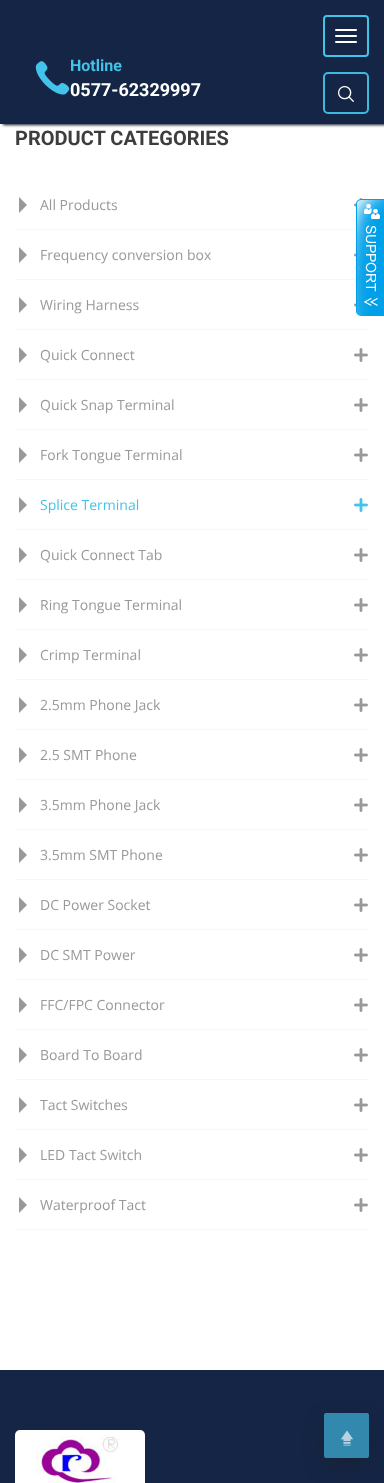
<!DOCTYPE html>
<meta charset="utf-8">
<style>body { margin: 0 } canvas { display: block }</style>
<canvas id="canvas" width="384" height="1483"></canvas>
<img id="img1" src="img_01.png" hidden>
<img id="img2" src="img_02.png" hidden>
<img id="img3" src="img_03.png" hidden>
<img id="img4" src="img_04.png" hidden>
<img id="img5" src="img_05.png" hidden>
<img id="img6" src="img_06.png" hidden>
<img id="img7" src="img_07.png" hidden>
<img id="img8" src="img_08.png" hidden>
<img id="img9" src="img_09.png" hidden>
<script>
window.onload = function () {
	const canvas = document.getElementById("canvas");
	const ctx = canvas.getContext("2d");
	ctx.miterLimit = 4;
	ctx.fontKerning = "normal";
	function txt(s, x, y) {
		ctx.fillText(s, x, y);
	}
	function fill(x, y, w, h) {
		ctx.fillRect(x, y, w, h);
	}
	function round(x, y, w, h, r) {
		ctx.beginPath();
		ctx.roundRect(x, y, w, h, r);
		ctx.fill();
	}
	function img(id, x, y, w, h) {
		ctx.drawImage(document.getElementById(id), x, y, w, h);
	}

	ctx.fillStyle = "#FFFFFF";
	fill(0, 0, 384, 1483);
	ctx.fillStyle = "#0A1327";
	ctx.filter = "blur(1.5px)";
	ctx.beginPath();
	ctx.rect(3, 1, 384, 124);
	ctx.fill();
	ctx.filter = "none";
	ctx.fillStyle = "#152545";
	fill(0, 0, 384, 124);
	ctx.beginPath();
	ctx.roundRect(324, 16, 44, 40, 3);
	ctx.strokeStyle = "#43C3EA";
	ctx.lineWidth = 2;
	ctx.stroke();
	ctx.fillStyle = "#FFFFFF";
	round(335, 29, 22, 2, 1);
	round(335, 35, 22, 2, 1);
	round(335, 41, 22, 2, 1);
	img("img1", 35, 61, 35, 34);
	ctx.beginPath();
	ctx.roundRect(324, 73, 44, 40, 4);
	ctx.strokeStyle = "#3EB9DE";
	ctx.stroke();
	img("img2", 338, 86, 16, 16);
	ctx.fillStyle = "#F7F7F7";
	fill(15, 229, 341, 1);
	ctx.fillStyle = "#999999";
	ctx.beginPath();
	ctx.moveTo(19, 197);
	ctx.lineTo(27, 205);
	ctx.lineTo(19, 213);
	ctx.closePath();
	ctx.fill();
	img("img3", 354, 198, 9, 9);
	ctx.fillStyle = "#F7F7F7";
	fill(15, 279, 341, 1);
	ctx.fillStyle = "#999999";
	ctx.beginPath();
	ctx.moveTo(19, 247);
	ctx.lineTo(27, 255);
	ctx.lineTo(19, 263);
	ctx.closePath();
	ctx.fill();
	img("img4", 354, 253, 2, 4);
	ctx.fillStyle = "#F7F7F7";
	fill(15, 329, 354, 1);
	ctx.fillStyle = "#999999";
	ctx.beginPath();
	ctx.moveTo(19, 297);
	ctx.lineTo(27, 305);
	ctx.lineTo(19, 313);
	ctx.closePath();
	ctx.fill();
	img("img4", 354, 303, 2, 4);
	ctx.fillStyle = "#F7F7F7";
	fill(15, 379, 354, 1);
	ctx.fillStyle = "#999999";
	ctx.beginPath();
	ctx.moveTo(19, 347);
	ctx.lineTo(27, 355);
	ctx.lineTo(19, 363);
	ctx.closePath();
	ctx.fill();
	img("img5", 354, 348, 14, 14);
	ctx.fillStyle = "#F7F7F7";
	fill(15, 429, 354, 1);
	ctx.fillStyle = "#999999";
	ctx.beginPath();
	ctx.moveTo(19, 397);
	ctx.lineTo(27, 405);
	ctx.lineTo(19, 413);
	ctx.closePath();
	ctx.fill();
	img("img5", 354, 398, 14, 14);
	ctx.fillStyle = "#F7F7F7";
	fill(15, 479, 354, 1);
	ctx.fillStyle = "#999999";
	ctx.beginPath();
	ctx.moveTo(19, 447);
	ctx.lineTo(27, 455);
	ctx.lineTo(19, 463);
	ctx.closePath();
	ctx.fill();
	img("img5", 354, 448, 14, 14);
	ctx.fillStyle = "#F7F7F7";
	fill(15, 529, 354, 1);
	ctx.fillStyle = "#999999";
	ctx.beginPath();
	ctx.moveTo(19, 497);
	ctx.lineTo(27, 505);
	ctx.lineTo(19, 513);
	ctx.closePath();
	ctx.fill();
	img("img6", 354, 498, 14, 14);
	ctx.fillStyle = "#F7F7F7";
	fill(15, 579, 354, 1);
	ctx.fillStyle = "#999999";
	ctx.beginPath();
	ctx.moveTo(19, 547);
	ctx.lineTo(27, 555);
	ctx.lineTo(19, 563);
	ctx.closePath();
	ctx.fill();
	img("img5", 354, 548, 14, 14);
	ctx.fillStyle = "#F7F7F7";
	fill(15, 629, 354, 1);
	ctx.fillStyle = "#999999";
	ctx.beginPath();
	ctx.moveTo(19, 597);
	ctx.lineTo(27, 605);
	ctx.lineTo(19, 613);
	ctx.closePath();
	ctx.fill();
	img("img5", 354, 598, 14, 14);
	ctx.fillStyle = "#F7F7F7";
	fill(15, 679, 354, 1);
	ctx.fillStyle = "#999999";
	ctx.beginPath();
	ctx.moveTo(19, 647);
	ctx.lineTo(27, 655);
	ctx.lineTo(19, 663);
	ctx.closePath();
	ctx.fill();
	img("img5", 354, 648, 14, 14);
	ctx.fillStyle = "#F7F7F7";
	fill(15, 729, 354, 1);
	ctx.fillStyle = "#999999";
	ctx.beginPath();
	ctx.moveTo(19, 697);
	ctx.lineTo(27, 705);
	ctx.lineTo(19, 713);
	ctx.closePath();
	ctx.fill();
	img("img5", 354, 698, 14, 14);
	ctx.fillStyle = "#F7F7F7";
	fill(15, 779, 354, 1);
	ctx.fillStyle = "#999999";
	ctx.beginPath();
	ctx.moveTo(19, 747);
	ctx.lineTo(27, 755);
	ctx.lineTo(19, 763);
	ctx.closePath();
	ctx.fill();
	img("img5", 354, 748, 14, 14);
	ctx.fillStyle = "#F7F7F7";
	fill(15, 829, 354, 1);
	ctx.fillStyle = "#999999";
	ctx.beginPath();
	ctx.moveTo(19, 797);
	ctx.lineTo(27, 805);
	ctx.lineTo(19, 813);
	ctx.closePath();
	ctx.fill();
	img("img5", 354, 798, 14, 14);
	ctx.fillStyle = "#F7F7F7";
	fill(15, 879, 354, 1);
	ctx.fillStyle = "#999999";
	ctx.beginPath();
	ctx.moveTo(19, 847);
	ctx.lineTo(27, 855);
	ctx.lineTo(19, 863);
	ctx.closePath();
	ctx.fill();
	img("img5", 354, 848, 14, 14);
	ctx.fillStyle = "#F7F7F7";
	fill(15, 929, 354, 1);
	ctx.fillStyle = "#999999";
	ctx.beginPath();
	ctx.moveTo(19, 897);
	ctx.lineTo(27, 905);
	ctx.lineTo(19, 913);
	ctx.closePath();
	ctx.fill();
	img("img5", 354, 898, 14, 14);
	ctx.fillStyle = "#F7F7F7";
	fill(15, 979, 354, 1);
	ctx.fillStyle = "#999999";
	ctx.beginPath();
	ctx.moveTo(19, 947);
	ctx.lineTo(27, 955);
	ctx.lineTo(19, 963);
	ctx.closePath();
	ctx.fill();
	img("img5", 354, 948, 14, 14);
	ctx.fillStyle = "#F7F7F7";
	fill(15, 1029, 354, 1);
	ctx.fillStyle = "#999999";
	ctx.beginPath();
	ctx.moveTo(19, 997);
	ctx.lineTo(27, 1005);
	ctx.lineTo(19, 1013);
	ctx.closePath();
	ctx.fill();
	img("img5", 354, 998, 14, 14);
	ctx.fillStyle = "#F7F7F7";
	fill(15, 1079, 354, 1);
	ctx.fillStyle = "#999999";
	ctx.beginPath();
	ctx.moveTo(19, 1047);
	ctx.lineTo(27, 1055);
	ctx.lineTo(19, 1063);
	ctx.closePath();
	ctx.fill();
	img("img5", 354, 1048, 14, 14);
	ctx.fillStyle = "#F7F7F7";
	fill(15, 1129, 354, 1);
	ctx.fillStyle = "#999999";
	ctx.beginPath();
	ctx.moveTo(19, 1097);
	ctx.lineTo(27, 1105);
	ctx.lineTo(19, 1113);
	ctx.closePath();
	ctx.fill();
	img("img5", 354, 1098, 14, 14);
	ctx.fillStyle = "#F7F7F7";
	fill(15, 1179, 354, 1);
	ctx.fillStyle = "#999999";
	ctx.beginPath();
	ctx.moveTo(19, 1147);
	ctx.lineTo(27, 1155);
	ctx.lineTo(19, 1163);
	ctx.closePath();
	ctx.fill();
	img("img5", 354, 1148, 14, 14);
	ctx.fillStyle = "#F7F7F7";
	fill(15, 1229, 354, 1);
	ctx.fillStyle = "#999999";
	ctx.beginPath();
	ctx.moveTo(19, 1197);
	ctx.lineTo(27, 1205);
	ctx.lineTo(19, 1213);
	ctx.closePath();
	ctx.fill();
	img("img5", 354, 1198, 14, 14);
	img("img7", 356, 199, 28, 117);
	ctx.fillStyle = "#152545";
	fill(0, 1370, 384, 113);
	ctx.fillStyle = "#FFFFFF";
	round(15, 1430, 130, 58, 5);
	img("img8", 36, 1435, 84, 48);
	ctx.fillStyle = "#191F2B";
	ctx.filter = "blur(11.5px)";
	ctx.beginPath();
	ctx.rect(330, 1427, 33, 33);
	ctx.fill();
	ctx.filter = "none";
	ctx.fillStyle = "#3288AD";
	ctx.beginPath();
	ctx.roundRect(325, 1414, 43, 43, 1);
	ctx.fill();
	ctx.strokeStyle = "#3288AD";
	ctx.stroke();
	img("img9", 340, 1430, 14, 16);
	ctx.font = "bold 16px Roboto";
	ctx.fillStyle = "#43C3EA";
	txt("Hotline", 70, 71);
	ctx.font = "bold 18px Roboto";
	ctx.fillStyle = "#FFFFFF";
	txt("0577-62329997", 70, 96);
	ctx.font = "bold 20px Roboto";
	ctx.fillStyle = "#3D3D3D";
	txt("PRODUCT CATEGORIES", 15, 145);
	ctx.font = "14px Open Sans";
	ctx.fillStyle = "#999999";
	txt("All Products", 40, 210);
	txt("Frequency conversion box", 40, 260);
	txt("Wiring Harness", 40, 310);
	txt("Quick Connect", 40, 360);
	txt("Quick Snap Terminal", 40, 410);
	txt("Fork Tongue Terminal", 40, 460);
	ctx.fillStyle = "#43C3EA";
	txt("Splice Terminal", 40, 510);
	ctx.fillStyle = "#999999";
	txt("Quick Connect Tab", 40, 560);
	txt("Ring Tongue Terminal", 40, 610);
	txt("Crimp Terminal", 40, 660);
	txt("2.5mm Phone Jack", 40, 710);
	txt("2.5 SMT Phone", 40, 760);
	txt("3.5mm Phone Jack", 40, 810);
	txt("3.5mm SMT Phone", 40, 860);
	txt("DC Power Socket", 40, 910);
	txt("DC SMT Power", 40, 960);
	txt("FFC/FPC Connector", 40, 1010);
	txt("Board To Board", 40, 1060);
	txt("Tact Switches", 40, 1110);
	txt("LED Tact Switch", 40, 1160);
	txt("Waterproof Tact", 40, 1210);
};
</script>
